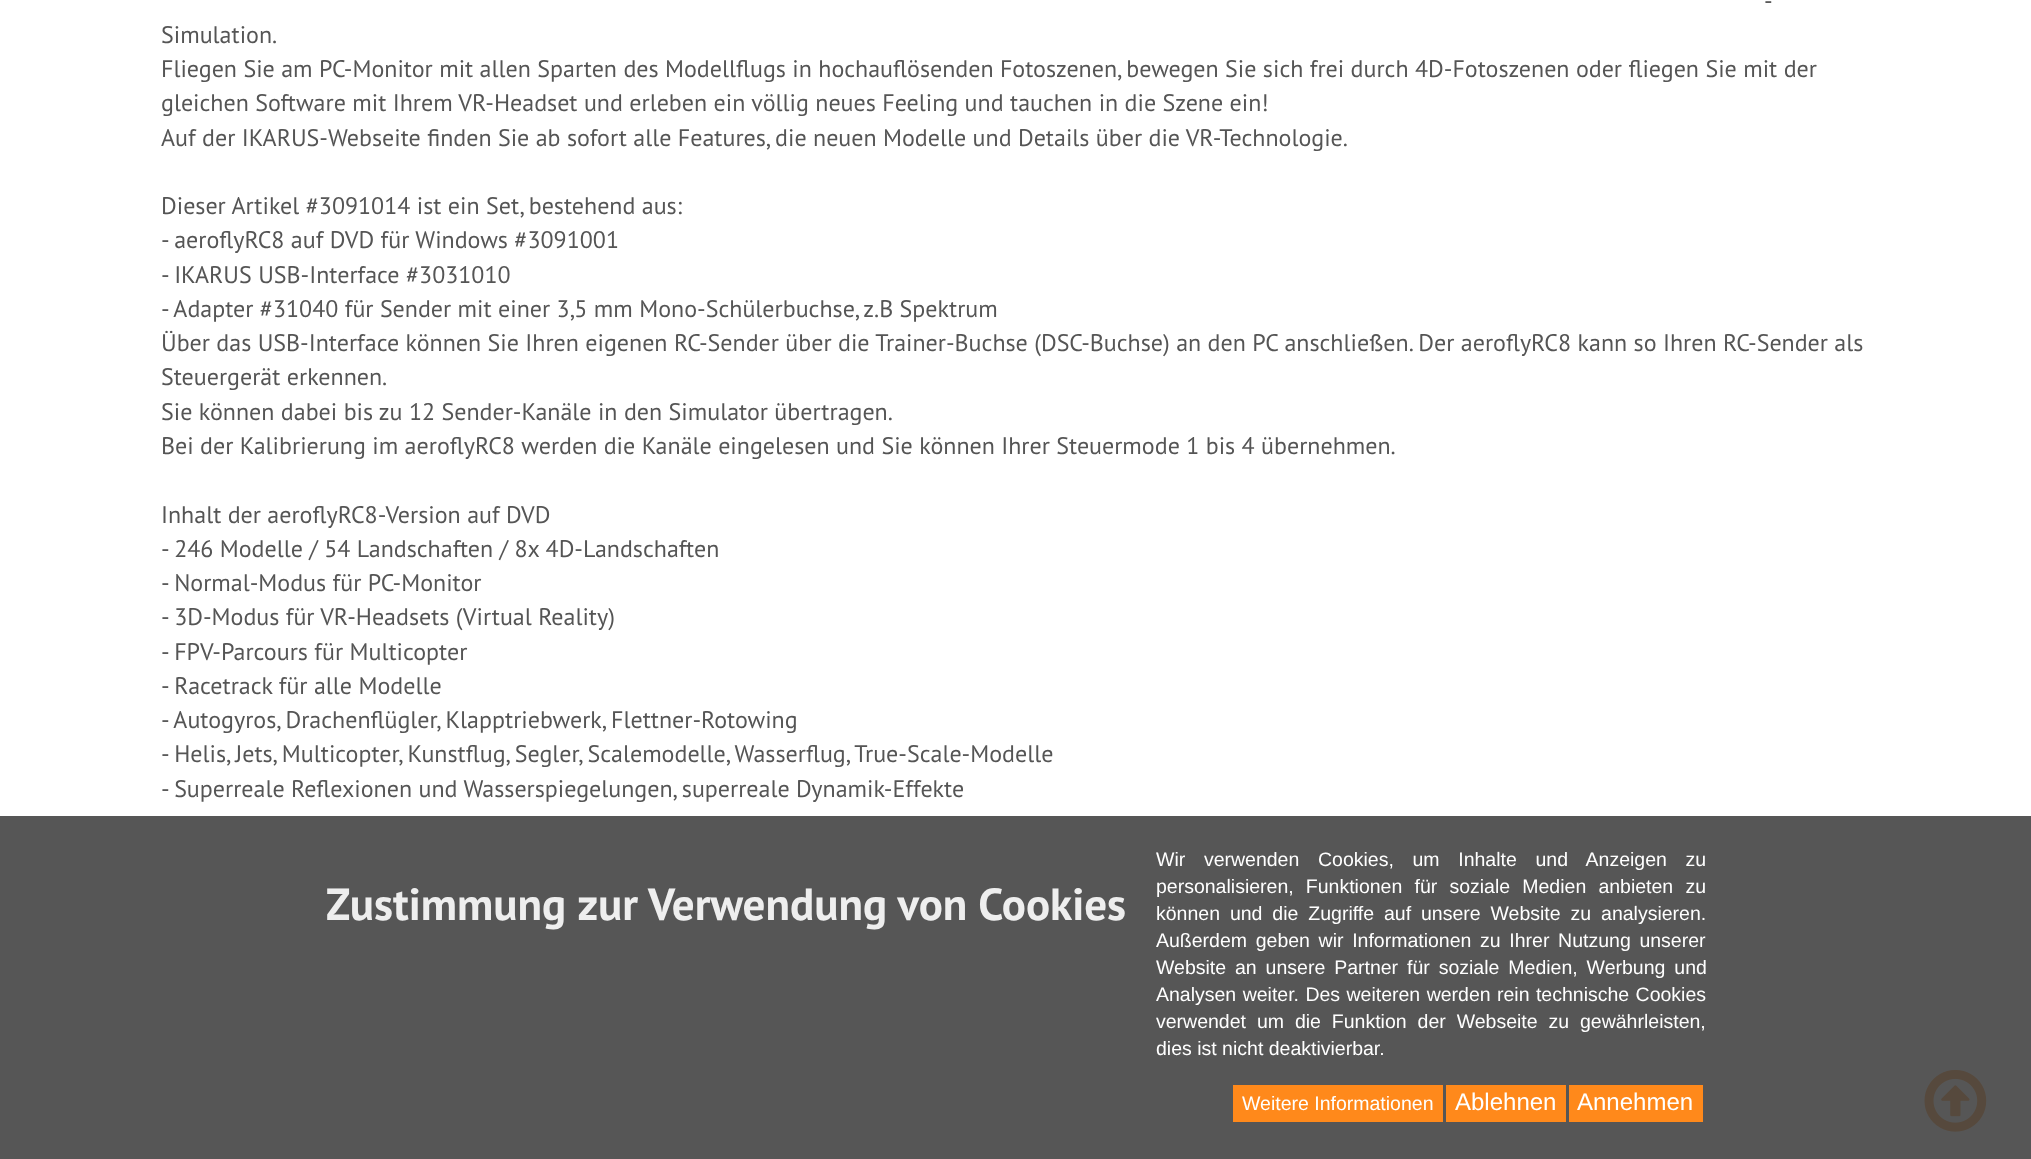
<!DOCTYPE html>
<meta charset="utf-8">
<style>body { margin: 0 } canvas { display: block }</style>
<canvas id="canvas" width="2031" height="1159"></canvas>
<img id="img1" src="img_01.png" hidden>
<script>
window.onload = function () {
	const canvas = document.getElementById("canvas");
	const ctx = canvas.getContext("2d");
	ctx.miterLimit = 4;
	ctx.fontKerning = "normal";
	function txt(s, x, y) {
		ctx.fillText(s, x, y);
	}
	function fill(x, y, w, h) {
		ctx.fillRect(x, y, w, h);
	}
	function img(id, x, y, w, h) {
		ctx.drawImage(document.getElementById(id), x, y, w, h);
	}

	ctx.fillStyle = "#FFFFFF";
	fill(0, 0, 2031, 1159);
	img("img1", 1924, 1069, 63, 63);
	ctx.fillStyle = "rgba(68, 68, 68, 0.9)";
	fill(0, 816, 2031, 343);
	ctx.fillStyle = "#FF891B";
	fill(1233, 1085, 210, 37);
	fill(1446, 1085, 120, 37);
	fill(1569, 1085, 134, 37);
	ctx.font = "24px PT Sans";
	ctx.fillStyle = "#555555";
	txt("-", 1764, 9);
	txt("Simulation.", 161, 43);
	txt("Fliegen Sie am PC-Monitor mit allen Sparten des Modellflugs in hochauflösenden Fotoszenen, bewegen Sie sich frei durch 4D-Fotoszenen oder fliegen Sie mit der", 161, 77);
	txt("gleichen Software mit Ihrem VR-Headset und erleben ein völlig neues Feeling und tauchen in die Szene ein!", 161, 111);
	txt("Auf der IKARUS-Webseite finden Sie ab sofort alle Features, die neuen Modelle und Details über die VR-Technologie.", 161, 146);
	txt("Dieser Artikel #3091014 ist ein Set, bestehend aus:", 161, 214);
	txt("- aeroflyRC8 auf DVD für Windows #3091001", 161, 248);
	txt("- IKARUS USB-Interface #3031010", 161, 283);
	txt("- Adapter #31040 für Sender mit einer 3,5 mm Mono-Schülerbuchse, z.B Spektrum", 161, 317);
	txt("Über das USB-Interface können Sie Ihren eigenen RC-Sender über die Trainer-Buchse (DSC-Buchse) an den PC anschließen. Der aeroflyRC8 kann so Ihren RC-Sender als", 161, 351);
	txt("Steuergerät erkennen.", 161, 385);
	txt("Sie können dabei bis zu 12 Sender-Kanäle in den Simulator übertragen.", 161, 420);
	txt("Bei der Kalibrierung im aeroflyRC8 werden die Kanäle eingelesen und Sie können Ihrer Steuermode 1 bis 4 übernehmen.", 161, 454);
	txt("Inhalt der aeroflyRC8-Version auf DVD", 161, 523);
	txt("- 246 Modelle / 54 Landschaften / 8x 4D-Landschaften", 161, 557);
	txt("- Normal-Modus für PC-Monitor", 161, 591);
	txt("- 3D-Modus für VR-Headsets (Virtual Reality)", 161, 625);
	txt("- FPV-Parcours für Multicopter", 161, 660);
	txt("- Racetrack für alle Modelle", 161, 694);
	txt("- Autogyros, Drachenflügler, Klapptriebwerk, Flettner-Rotowing", 161, 728);
	txt("- Helis, Jets, Multicopter, Kunstflug, Segler, Scalemodelle, Wasserflug, True-Scale-Modelle", 161, 762);
	txt("- Superreale Reflexionen und Wasserspiegelungen, superreale Dynamik-Effekte", 161, 797);
	ctx.font = "bold 45px PT Sans";
	ctx.fillStyle = "#EEEEEE";
	txt("Zustimmung zur Verwendung von Cookies", 326, 920);
	ctx.wordSpacing = "13.25px";
	ctx.font = "19.5px Liberation Sans";
	ctx.fillStyle = "#FFFFFF";
	txt("Wir verwenden Cookies, um Inhalte und Anzeigen zu", 1156, 866);
	ctx.wordSpacing = "6.75px";
	txt("personalisieren, Funktionen für soziale Medien anbieten zu", 1156, 893);
	ctx.wordSpacing = "4.5px";
	txt("können und die Zugriffe auf unsere Website zu analysieren.", 1156, 920);
	ctx.wordSpacing = "3.25px";
	txt("Außerdem geben wir Informationen zu Ihrer Nutzung unserer", 1156, 947);
	ctx.wordSpacing = "3.5px";
	txt("Website an unsere Partner für soziale Medien, Werbung und", 1156, 974);
	ctx.wordSpacing = "1px";
	txt("Analysen weiter. Des weiteren werden rein technische Cookies", 1156, 1001);
	ctx.wordSpacing = "5.5px";
	txt("verwendet um die Funktion der Webseite zu gewährleisten,", 1156, 1028);
	ctx.wordSpacing = "0px";
	txt("dies ist nicht deaktivierbar.", 1156, 1055);
	txt("Weitere Informationen", 1242, 1110);
	ctx.font = "24px Liberation Sans";
	txt("Ablehnen", 1455, 1110);
	txt("Annehmen", 1577, 1110);
};
</script>
